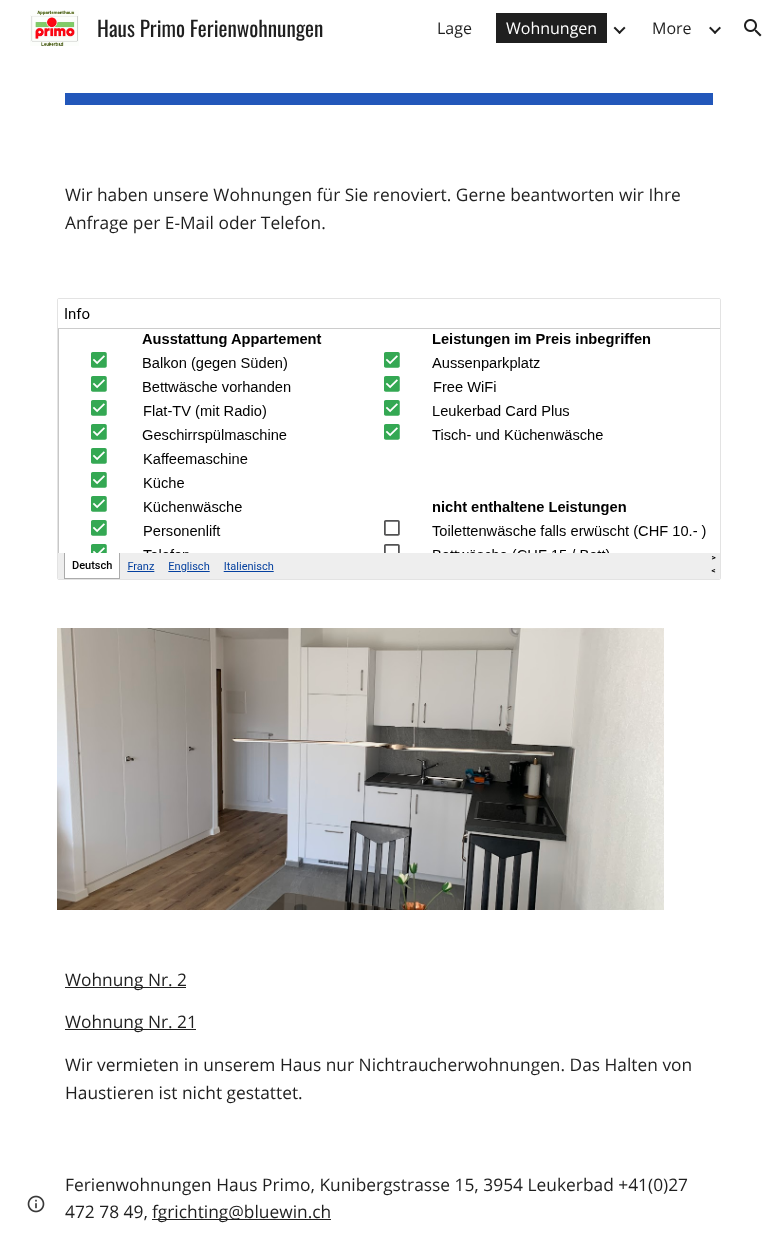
<!DOCTYPE html>
<meta charset="utf-8">
<style>body { margin: 0 } canvas { display: block }</style>
<canvas id="canvas" width="777" height="1238"></canvas>
<img id="img1" src="img_01.png" hidden>
<img id="img2" src="img_02.png" hidden>
<img id="img3" src="img_03.png" hidden>
<img id="img4" src="img_04.png" hidden>
<img id="img5" src="img_05.png" hidden>
<img id="img6" src="img_06.png" hidden>
<img id="img7" src="img_07.png" hidden>
<script>
window.onload = function () {
	const canvas = document.getElementById("canvas");
	const ctx = canvas.getContext("2d");
	ctx.miterLimit = 4;
	ctx.fontKerning = "normal";
	function txt(s, x, y) {
		ctx.fillText(s, x, y);
	}
	function fill(x, y, w, h) {
		ctx.fillRect(x, y, w, h);
	}
	function img(id, x, y, w, h) {
		ctx.drawImage(document.getElementById(id), x, y, w, h);
	}

	ctx.fillStyle = "#FFFFFF";
	fill(0, 0, 777, 1238);
	img("img1", 30, 10, 49, 36);
	ctx.fillStyle = "#1F1F1F";
	fill(496, 13, 111, 30);
	img("img2", 613, 26, 13, 8);
	img("img3", 709, 26, 12, 8);
	img("img4", 744, 19, 18, 18);
	ctx.fillStyle = "#2257BA";
	fill(65, 93, 648, 12);
	ctx.beginPath();
	ctx.roundRect(57.5, 298.5, 663, 281, 1.5);
	ctx.strokeStyle = "#E3E3E3";
	ctx.stroke();
	img("img5", 58, 299, 662, 280);
	img("img6", 57, 628, 607, 282);
	ctx.fillStyle = "#212121";
	fill(65, 987, 121, 1);
	fill(65, 1029, 131, 1);
	img("img7", 27, 1195, 18, 18);
	fill(152, 1219, 179, 1);
	ctx.font = "21.25px Oswald";
	ctx.fillStyle = "#1F1F1F";
	txt("Haus Primo Ferienwohnungen", 97, 37);
	ctx.font = "16px Open Sans";
	txt("Lage", 437, 34);
	ctx.fillStyle = "#FFFFFF";
	txt("Wohnungen", 506, 34);
	ctx.fillStyle = "#1F1F1F";
	txt("More", 652, 34);
	ctx.font = "17.35px Open Sans";
	txt("Wir haben unsere Wohnungen für Sie renoviert. Gerne beantworten wir Ihre", 65, 201);
	txt("Anfrage per E-Mail oder Telefon.", 65, 229);
	txt("Wohnung Nr. 2", 65, 986);
	txt("Wohnung Nr. 21", 65, 1028);
	txt("Wir vermieten in unserem Haus nur Nichtraucherwohnungen. Das Halten von", 65, 1071);
	txt("Haustieren ist nicht gestattet.", 65, 1099);
	txt("Ferienwohnungen Haus Primo, Kunibergstrasse 15, 3954 Leukerbad +41(0)27", 65, 1191);
	txt("472 78 49,", 65, 1218);
	txt("fgrichting@bluewin.ch", 152, 1218);
};
</script>
